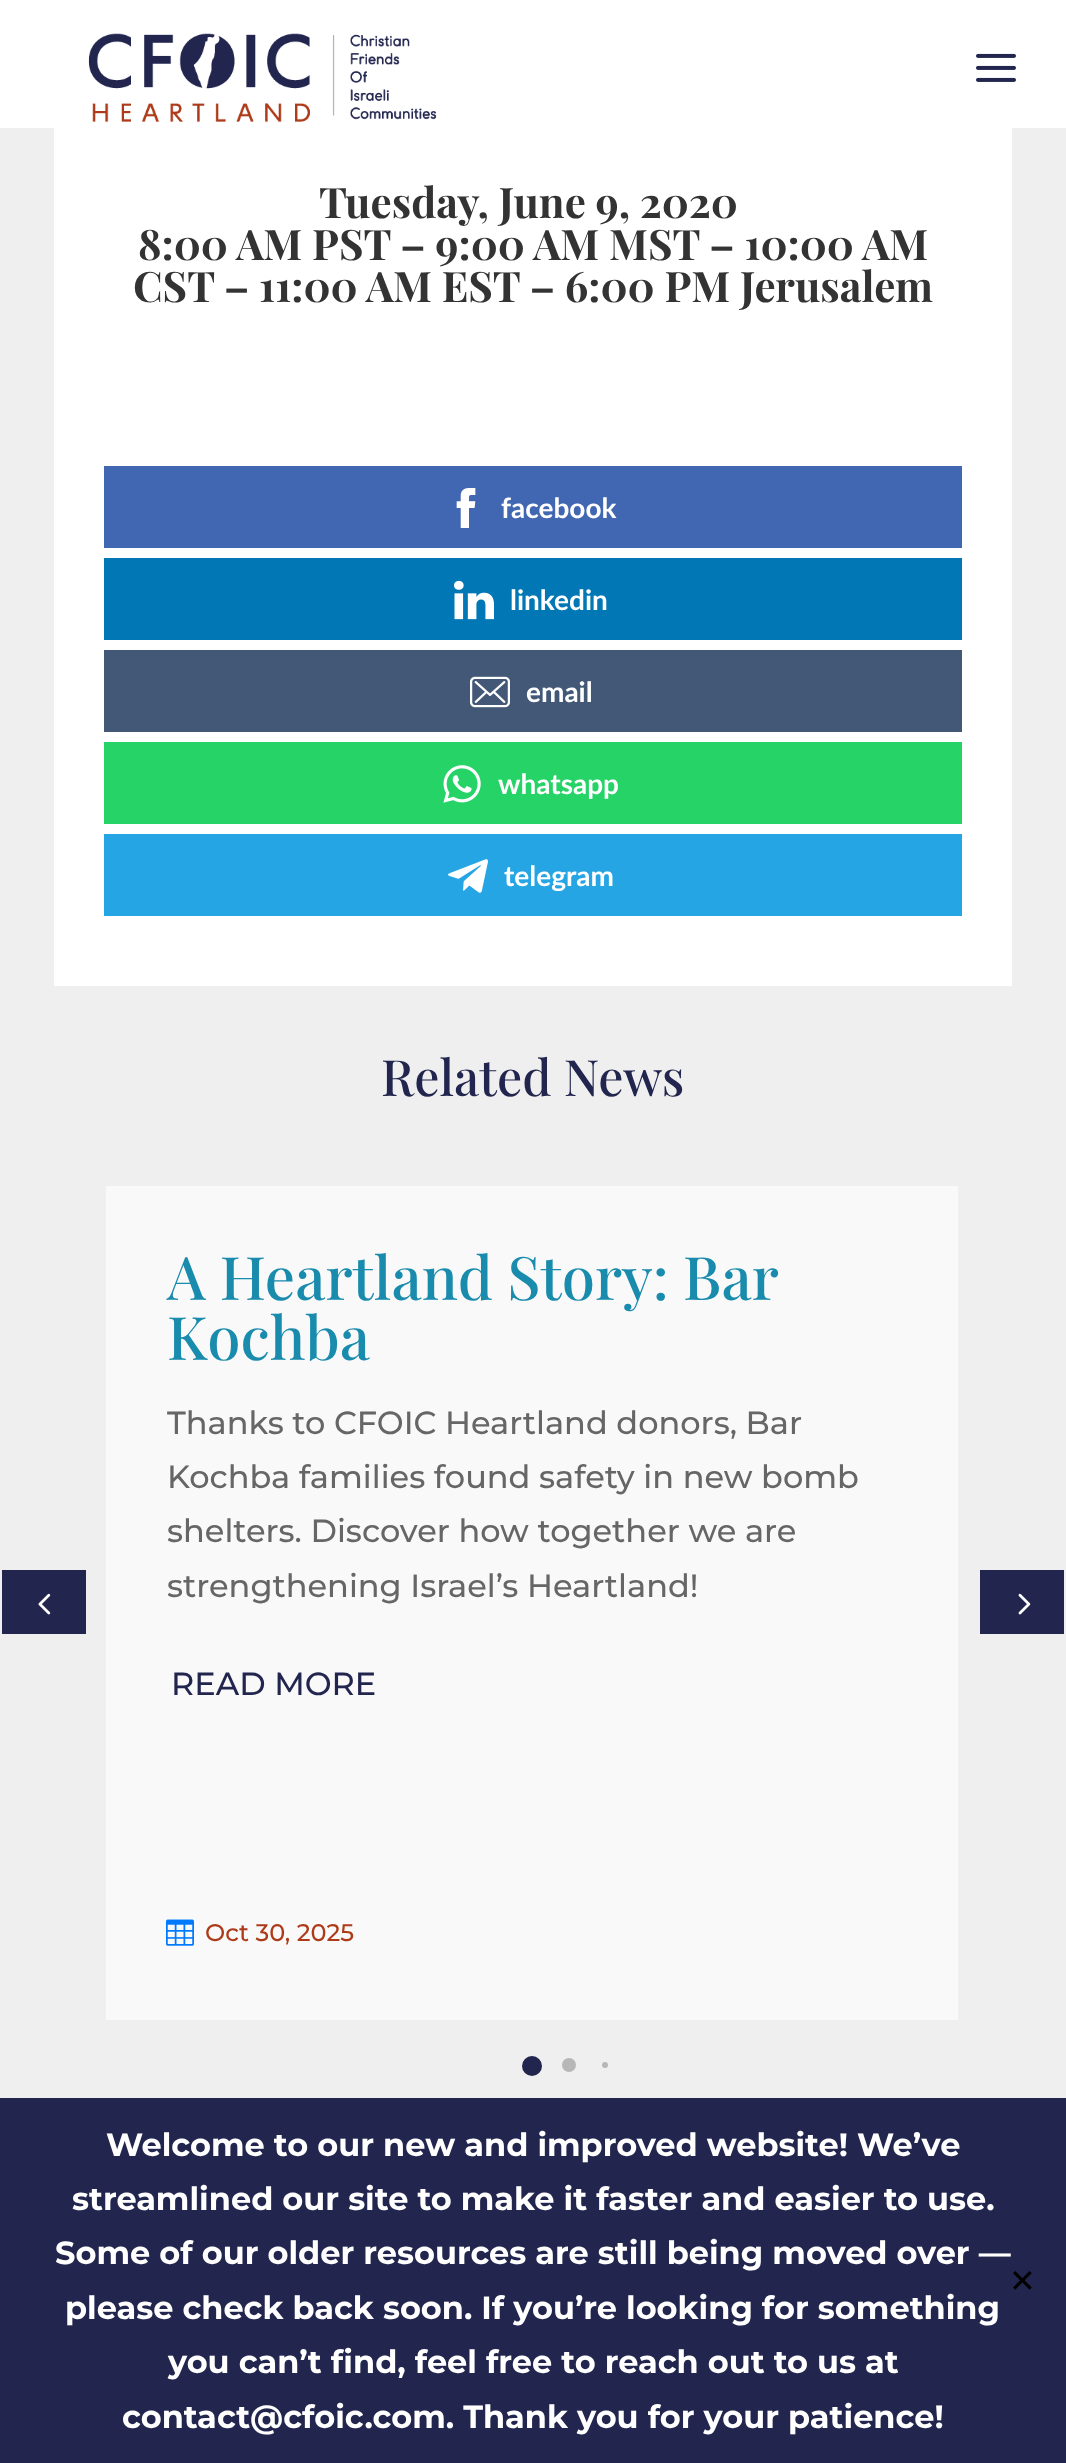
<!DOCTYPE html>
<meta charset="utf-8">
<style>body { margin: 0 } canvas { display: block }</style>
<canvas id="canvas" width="1066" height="2463"></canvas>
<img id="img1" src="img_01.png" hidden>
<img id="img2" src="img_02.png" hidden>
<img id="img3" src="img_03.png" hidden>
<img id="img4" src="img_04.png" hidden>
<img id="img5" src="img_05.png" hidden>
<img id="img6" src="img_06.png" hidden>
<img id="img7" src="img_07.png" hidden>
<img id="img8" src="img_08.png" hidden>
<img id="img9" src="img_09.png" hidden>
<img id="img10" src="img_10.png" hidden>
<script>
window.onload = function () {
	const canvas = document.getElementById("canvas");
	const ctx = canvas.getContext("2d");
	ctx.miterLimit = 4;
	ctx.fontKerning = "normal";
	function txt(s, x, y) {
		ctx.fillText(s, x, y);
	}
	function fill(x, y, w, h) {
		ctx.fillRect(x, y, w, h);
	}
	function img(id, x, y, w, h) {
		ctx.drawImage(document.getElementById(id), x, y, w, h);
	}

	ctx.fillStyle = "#EFEFEF";
	fill(0, 0, 1066, 2463);
	ctx.fillStyle = "#FFFFFF";
	fill(0, 0, 1066, 128);
	img("img1", 88, 33, 349, 89);
	img("img2", 976, 53, 40, 29);
	fill(54, 128, 958, 858);
	ctx.fillStyle = "#4267B2";
	fill(104, 466, 858, 82);
	img("img3", 456, 488, 20, 40);
	ctx.fillStyle = "#0177B5";
	fill(104, 558, 858, 82);
	img("img4", 454, 580, 40, 40);
	ctx.fillStyle = "#435877";
	fill(104, 650, 858, 82);
	img("img5", 470, 676, 40, 32);
	ctx.fillStyle = "#26D367";
	fill(104, 742, 858, 82);
	img("img6", 443, 765, 38, 38);
	ctx.fillStyle = "#26A5E5";
	fill(104, 834, 858, 82);
	img("img7", 448, 859, 40, 34);
	ctx.fillStyle = "#F9F9F9";
	fill(106, 1186, 852, 834);
	img("img8", 166, 1919, 28, 27);
	ctx.fillStyle = "#22264F";
	fill(2, 1570, 84, 64);
	img("img9", 38, 1593, 13, 22);
	fill(980, 1570, 84, 64);
	img("img10", 1018, 1593, 13, 22);
	ctx.beginPath();
	ctx.arc(532, 2066, 10, 0, Math.PI * 2);
	ctx.fill();
	ctx.fillStyle = "#B7B7B7";
	ctx.beginPath();
	ctx.arc(569, 2065, 7, 0, Math.PI * 2);
	ctx.fill();
	ctx.beginPath();
	ctx.arc(605, 2065, 3, 0, Math.PI * 2);
	ctx.fill();
	ctx.fillStyle = "#22264E";
	fill(0, 2098, 1066, 365);
	ctx.font = "bold 42px Playfair Display";
	ctx.fillStyle = "#333333";
	txt("Tuesday, June 9, 2020", 319, 218);
	txt("8:00 AM PST – 9:00 AM MST – 10:00 AM", 138, 260);
	txt("CST – 11:00 AM EST – 6:00 PM Jerusalem", 133, 302);
	ctx.font = "bold 28px Lato";
	ctx.fillStyle = "#FFFFFF";
	txt("facebook", 501, 518);
	txt("linkedin", 510, 610);
	txt("email", 526, 702);
	txt("whatsapp", 498, 794);
	txt("telegram", 504, 886);
	ctx.font = "500 50px Playfair Display";
	ctx.fillStyle = "#22264F";
	txt("Related News", 381, 1096);
	ctx.wordSpacing = "-0.5px";
	ctx.font = "500 60px Playfair Display";
	ctx.fillStyle = "#198BAD";
	txt("A Heartland Story: Bar", 167, 1300);
	ctx.wordSpacing = "0px";
	txt("Kochba", 167, 1360);
	ctx.font = "500 32px Montserrat";
	ctx.fillStyle = "#666666";
	txt("Thanks to CFOIC Heartland donors, Bar", 167, 1434);
	txt("Kochba families found safety in new bomb", 167, 1488);
	txt("shelters. Discover how together we are", 167, 1542);
	txt("strengthening Israel’s Heartland!", 167, 1597);
	ctx.fillStyle = "#22264F";
	txt("READ MORE", 171, 1695);
	ctx.font = "500 24px Montserrat";
	ctx.fillStyle = "#AD3B19";
	txt("Oct 30, 2025", 205, 1941);
	ctx.font = "bold 32px Montserrat";
	ctx.fillStyle = "#FFFFFF";
	txt("Welcome to our new and improved website! We’ve", 106, 2156);
	txt("streamlined our site to make it faster and easier to use.", 72, 2210);
	txt("Some of our older resources are still being moved over —", 55, 2264);
	txt("please check back soon. If you’re looking for something", 65, 2319);
	txt("you can’t find, feel free to reach out to us at", 168, 2373);
	txt("contact@cfoic.com. Thank you for your patience!", 122, 2428);
	ctx.font = "32px DejaVu Sans";
	ctx.fillStyle = "#000000";
	txt("✕", 1009, 2292);
};
</script>
